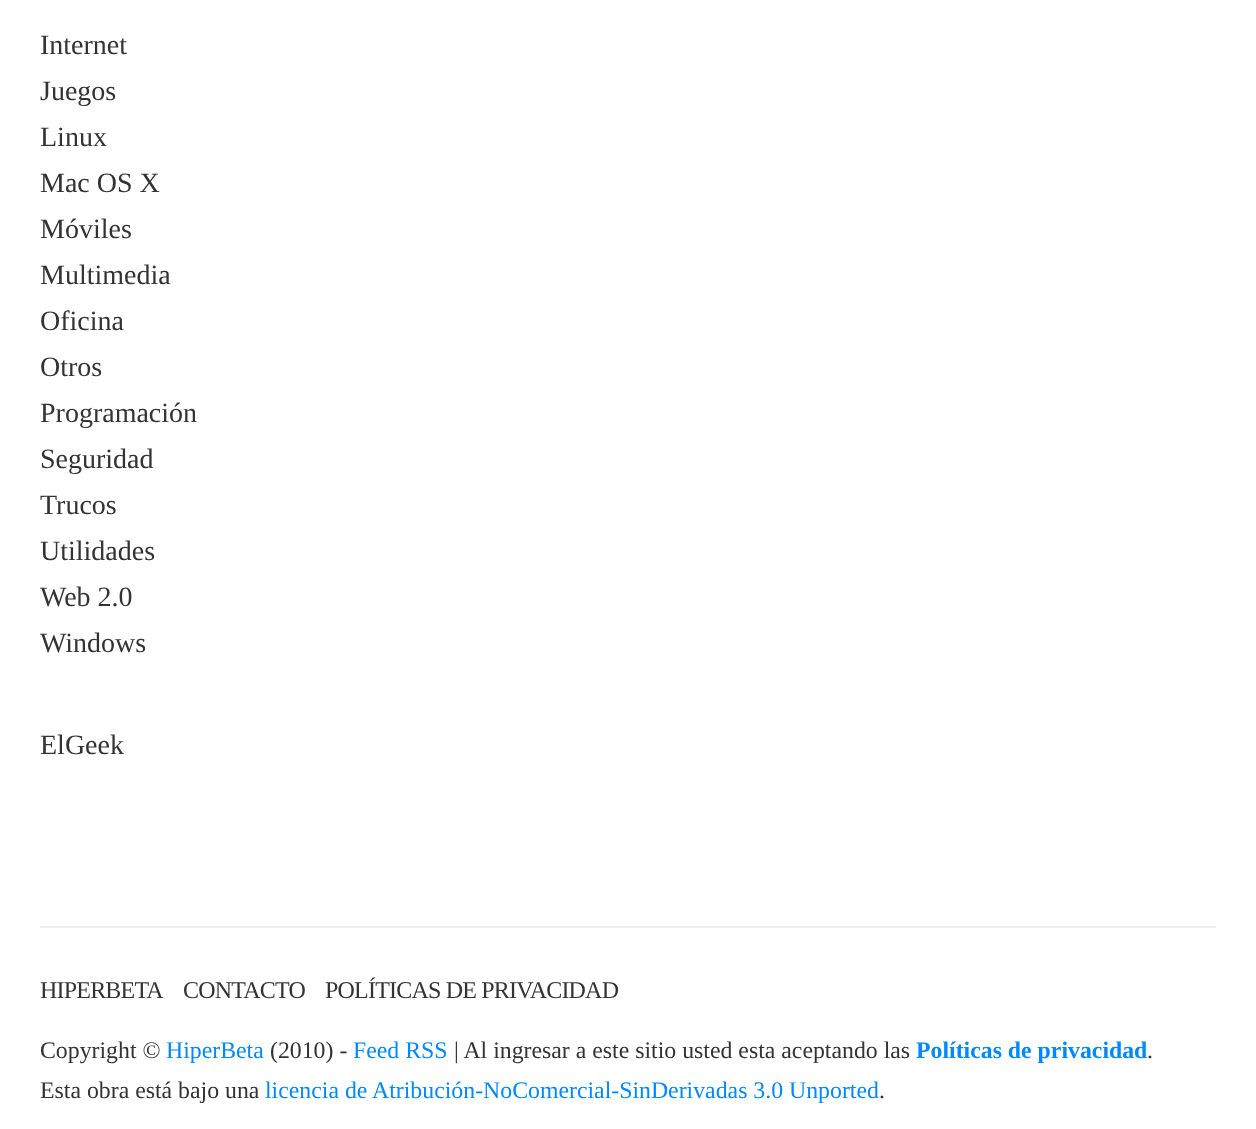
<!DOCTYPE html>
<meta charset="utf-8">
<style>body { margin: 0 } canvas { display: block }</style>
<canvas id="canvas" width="1256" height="1129"></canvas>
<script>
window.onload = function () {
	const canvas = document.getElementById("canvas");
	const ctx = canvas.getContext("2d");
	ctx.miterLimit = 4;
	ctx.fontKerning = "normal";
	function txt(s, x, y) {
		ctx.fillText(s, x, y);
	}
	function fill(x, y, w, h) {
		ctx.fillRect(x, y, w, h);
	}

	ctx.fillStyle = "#FFFFFF";
	fill(0, 0, 1256, 1129);
	ctx.fillStyle = "#EEEEEE";
	fill(40, 926, 1176, 2);
	ctx.font = "28px Liberation Serif";
	ctx.fillStyle = "#333333";
	txt("Internet", 40, 54);
	txt("Juegos", 40, 100);
	txt("Linux", 40, 146);
	txt("Mac OS X", 40, 192);
	txt("Móviles", 40, 238);
	txt("Multimedia", 40, 284);
	txt("Oficina", 40, 330);
	txt("Otros", 40, 376);
	txt("Programación", 40, 422);
	txt("Seguridad", 40, 468);
	txt("Trucos", 40, 514);
	txt("Utilidades", 40, 560);
	txt("Web 2.0", 40, 606);
	txt("Windows", 40, 652);
	txt("ElGeek", 40, 754);
	ctx.letterSpacing = "-0.8px";
	ctx.font = "24px Liberation Serif";
	txt("HIPERBETA", 40, 998);
	txt("CONTACTO", 183, 998);
	txt("POLÍTICAS DE PRIVACIDAD", 325, 998);
	ctx.letterSpacing = "0px";
	ctx.font = "23.8px Liberation Serif";
	txt("Copyright ©", 40, 1058);
	ctx.fillStyle = "#0088FF";
	txt("HiperBeta", 166, 1058);
	ctx.fillStyle = "#333333";
	txt("(2010) -", 270, 1058);
	ctx.fillStyle = "#0088FF";
	txt("Feed RSS", 353, 1058);
	ctx.fillStyle = "#333333";
	txt("| Al ingresar a este sitio usted esta aceptando las", 454, 1058);
	ctx.font = "bold 23.8px Liberation Serif";
	ctx.fillStyle = "#0088FF";
	txt("Políticas de privacidad", 916, 1058);
	ctx.font = "23.8px Liberation Serif";
	ctx.fillStyle = "#333333";
	txt(".", 1147, 1058);
	txt("Esta obra está bajo una", 40, 1098);
	ctx.fillStyle = "#0088FF";
	txt("licencia de Atribución-NoComercial-SinDerivadas 3.0 Unported", 265, 1098);
	ctx.fillStyle = "#333333";
	txt(".", 879, 1098);
};
</script>
